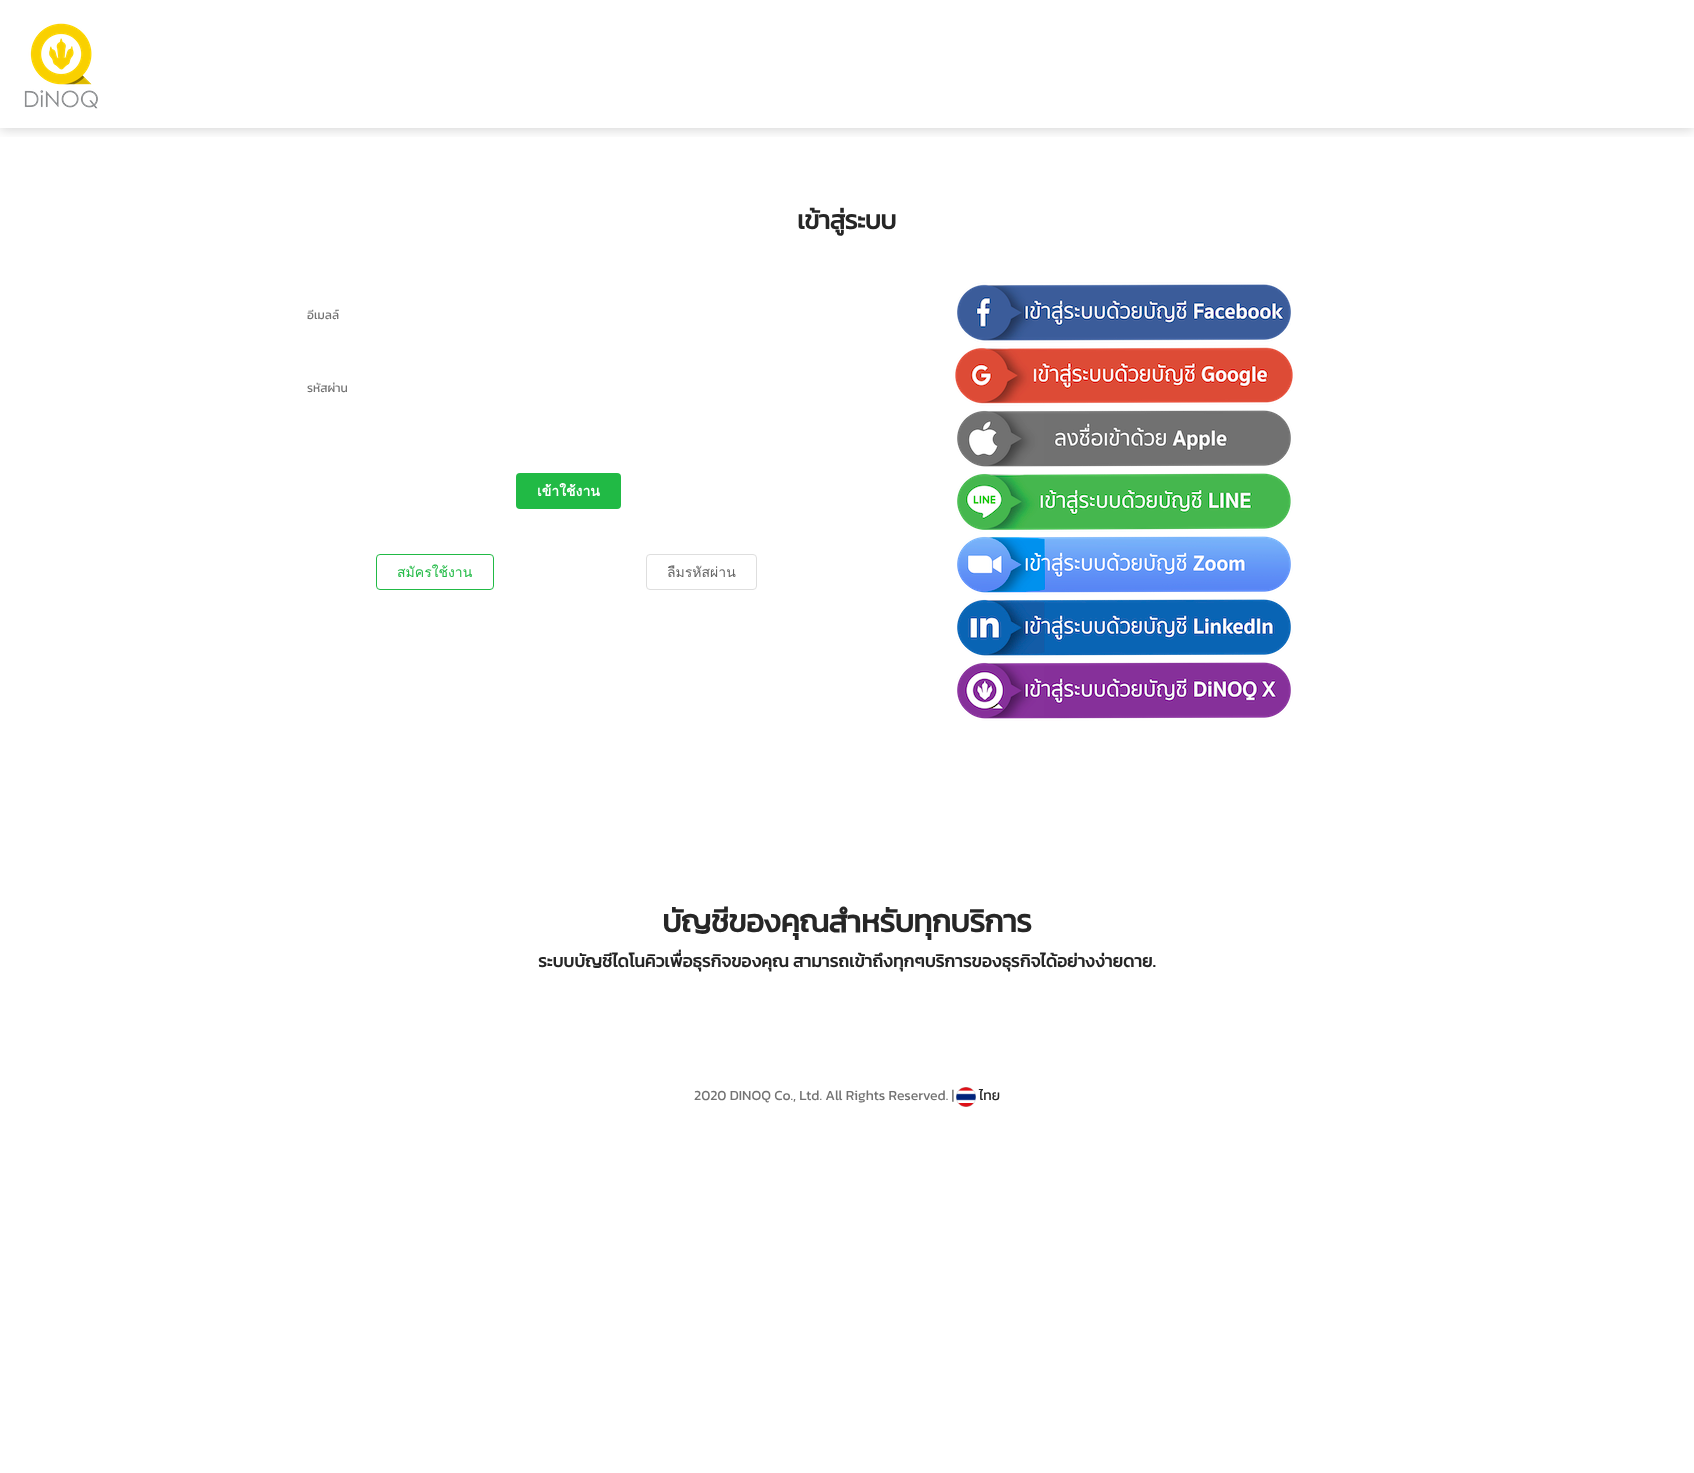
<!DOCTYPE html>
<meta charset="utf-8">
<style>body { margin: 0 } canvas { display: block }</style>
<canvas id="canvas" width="1694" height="1473"></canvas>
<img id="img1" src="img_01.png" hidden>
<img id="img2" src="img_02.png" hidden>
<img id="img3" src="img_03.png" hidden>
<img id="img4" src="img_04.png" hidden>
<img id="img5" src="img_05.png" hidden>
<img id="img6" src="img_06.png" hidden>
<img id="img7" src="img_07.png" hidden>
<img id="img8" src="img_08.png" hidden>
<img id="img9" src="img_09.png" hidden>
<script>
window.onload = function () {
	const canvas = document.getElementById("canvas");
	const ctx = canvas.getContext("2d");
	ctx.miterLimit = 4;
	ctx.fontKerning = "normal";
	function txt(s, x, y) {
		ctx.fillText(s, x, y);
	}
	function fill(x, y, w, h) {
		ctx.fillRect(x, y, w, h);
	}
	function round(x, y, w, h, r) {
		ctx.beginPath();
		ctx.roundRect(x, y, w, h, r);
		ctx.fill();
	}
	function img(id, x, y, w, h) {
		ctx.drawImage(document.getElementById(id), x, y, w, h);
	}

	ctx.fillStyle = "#FFFFFF";
	fill(0, 0, 1694, 1473);
	ctx.save();
	ctx.beginPath();
	ctx.rect(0, 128, 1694, 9);
	ctx.clip();
	ctx.fillStyle = "rgba(0, 0, 0, 0.16)";
	ctx.filter = "blur(6px)";
	ctx.beginPath();
	ctx.rect(0, 2, 1694, 128);
	ctx.fill();
	ctx.filter = "none";
	ctx.restore();
	img("img1", 24, 23, 74, 86);
	ctx.fillStyle = "#21BA45";
	round(516, 473, 105, 36, 4);
	ctx.beginPath();
	ctx.roundRect(376.5, 554.5, 117, 35, 3.5);
	ctx.strokeStyle = "#21BA45";
	ctx.stroke();
	ctx.beginPath();
	ctx.roundRect(646.5, 554.5, 110, 35, 3.5);
	ctx.strokeStyle = "#DEDEDE";
	ctx.stroke();
	img("img2", 957, 282, 334, 61);
	img("img3", 953, 345, 342, 61);
	img("img4", 957, 410, 336, 57);
	img("img5", 957, 473, 336, 59);
	img("img6", 957, 536, 336, 59);
	img("img7", 957, 599, 336, 59);
	img("img8", 957, 662, 336, 59);
	img("img9", 956, 1087, 20, 20);
	ctx.letterSpacing = "-0.7px";
	ctx.font = "bold 26px Kanit";
	ctx.fillStyle = "#262626";
	txt("เข้าสู่ระบบ", 797, 229);
	ctx.letterSpacing = "0px";
	ctx.font = "12px Kanit";
	ctx.fillStyle = "#737373";
	txt("อีเมลล์", 307, 319);
	txt("รหัสผ่าน", 307, 392);
	ctx.font = "bold 14px Loma";
	ctx.fillStyle = "#FFFFFF";
	txt("เข้าใช้งาน", 537, 496);
	ctx.font = "14px Loma";
	ctx.fillStyle = "#21BA45";
	txt("สมัครใช้งาน", 397, 577);
	ctx.fillStyle = "#666666";
	txt("ลืมรหัสผ่าน", 667, 577);
	ctx.letterSpacing = "-0.7px";
	ctx.font = "bold 31.5px Kanit";
	ctx.fillStyle = "#262626";
	txt("บัญชีของคุณสำหรับทุกบริการ", 662, 932);
	ctx.letterSpacing = "0px";
	ctx.font = "bold 17.5px Kanit";
	txt("ระบบบัญชีไดโนคิวเพื่อธุรกิจของคุณ สามารถเข้าถึงทุกๆบริการของธุรกิจได้อย่างง่ายดาย.", 538, 967);
	ctx.font = "14px Kanit";
	ctx.fillStyle = "#737373";
	txt("2020 DINOQ Co., Ltd. All Rights Reserved. |", 694, 1100);
	ctx.fillStyle = "#262626";
	txt("ไทย", 979, 1100);
};
</script>
